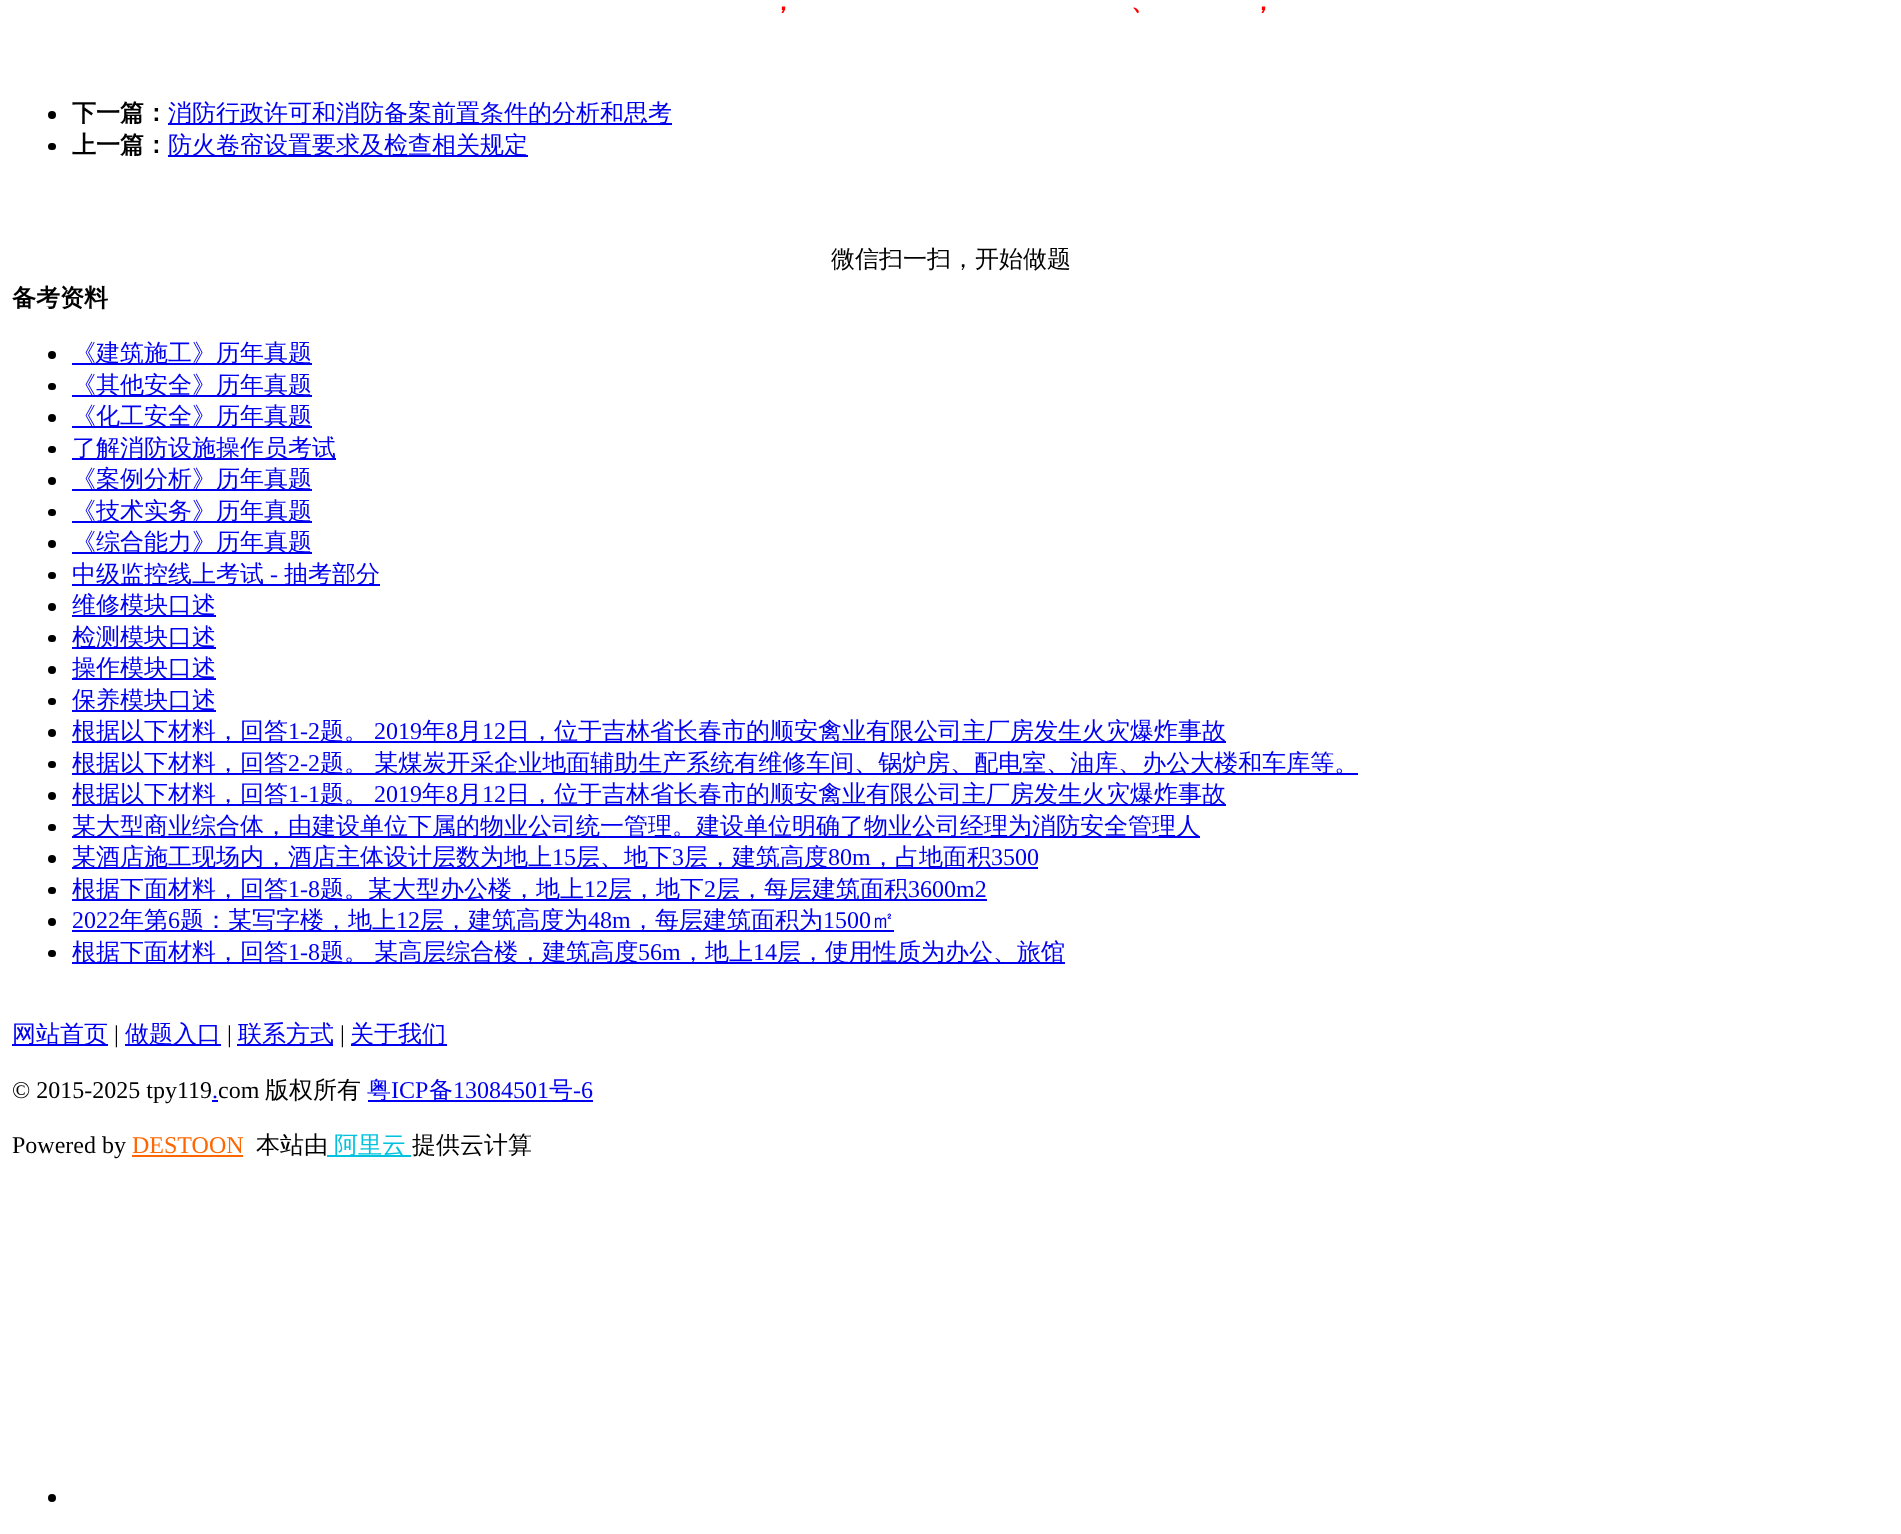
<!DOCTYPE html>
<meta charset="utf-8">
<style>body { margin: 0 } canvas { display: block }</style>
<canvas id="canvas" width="1901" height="1534"></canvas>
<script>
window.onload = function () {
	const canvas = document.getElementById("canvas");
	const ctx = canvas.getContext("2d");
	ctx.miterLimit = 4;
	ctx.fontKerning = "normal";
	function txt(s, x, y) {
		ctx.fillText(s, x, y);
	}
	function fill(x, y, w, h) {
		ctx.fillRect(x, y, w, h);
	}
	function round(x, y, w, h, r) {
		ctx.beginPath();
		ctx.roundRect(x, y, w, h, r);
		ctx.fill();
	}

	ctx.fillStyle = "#FFFFFF";
	fill(0, 0, 1901, 1534);
	ctx.fillStyle = "#000000";
	ctx.beginPath();
	ctx.arc(52, 115, 4, 0, Math.PI * 2);
	ctx.fill();
	ctx.fillStyle = "#0000EE";
	fill(168, 123, 504, 2);
	ctx.fillStyle = "#000000";
	round(48, 143, 8, 7, 3.5);
	ctx.fillStyle = "#0000EE";
	fill(168, 155, 360, 2);
	ctx.fillStyle = "#000000";
	ctx.beginPath();
	ctx.arc(52, 355, 4, 0, Math.PI * 2);
	ctx.fill();
	ctx.fillStyle = "#0000EE";
	fill(72, 363, 240, 2);
	ctx.fillStyle = "#000000";
	round(48, 383, 8, 7, 3.5);
	ctx.fillStyle = "#0000EE";
	fill(72, 395, 240, 2);
	ctx.fillStyle = "#000000";
	ctx.beginPath();
	ctx.arc(52, 418, 4, 0, Math.PI * 2);
	ctx.fill();
	ctx.fillStyle = "#0000EE";
	fill(72, 426, 240, 2);
	ctx.fillStyle = "#000000";
	round(48, 446, 8, 7, 3.5);
	ctx.fillStyle = "#0000EE";
	fill(72, 458, 264, 2);
	ctx.fillStyle = "#000000";
	ctx.beginPath();
	ctx.arc(52, 481, 4, 0, Math.PI * 2);
	ctx.fill();
	ctx.fillStyle = "#0000EE";
	fill(72, 489, 240, 2);
	ctx.fillStyle = "#000000";
	round(48, 509, 8, 7, 3.5);
	ctx.fillStyle = "#0000EE";
	fill(72, 521, 240, 2);
	ctx.fillStyle = "#000000";
	ctx.beginPath();
	ctx.arc(52, 544, 4, 0, Math.PI * 2);
	ctx.fill();
	ctx.fillStyle = "#0000EE";
	fill(72, 552, 240, 2);
	ctx.fillStyle = "#000000";
	round(48, 572, 8, 7, 3.5);
	ctx.fillStyle = "#0000EE";
	fill(72, 584, 308, 2);
	ctx.fillStyle = "#000000";
	ctx.beginPath();
	ctx.arc(52, 607, 4, 0, Math.PI * 2);
	ctx.fill();
	ctx.fillStyle = "#0000EE";
	fill(72, 615, 144, 2);
	ctx.fillStyle = "#000000";
	round(48, 635, 8, 7, 3.5);
	ctx.fillStyle = "#0000EE";
	fill(72, 647, 144, 2);
	ctx.fillStyle = "#000000";
	ctx.beginPath();
	ctx.arc(52, 670, 4, 0, Math.PI * 2);
	ctx.fill();
	ctx.fillStyle = "#0000EE";
	fill(72, 678, 144, 2);
	ctx.fillStyle = "#000000";
	round(48, 698, 8, 7, 3.5);
	ctx.fillStyle = "#0000EE";
	fill(72, 710, 144, 2);
	ctx.fillStyle = "#000000";
	ctx.beginPath();
	ctx.arc(52, 733, 4, 0, Math.PI * 2);
	ctx.fill();
	ctx.fillStyle = "#0000EE";
	fill(72, 741, 1154, 2);
	ctx.fillStyle = "#000000";
	round(48, 761, 8, 7, 3.5);
	ctx.fillStyle = "#0000EE";
	fill(72, 773, 1286, 2);
	ctx.fillStyle = "#000000";
	ctx.beginPath();
	ctx.arc(52, 796, 4, 0, Math.PI * 2);
	ctx.fill();
	ctx.fillStyle = "#0000EE";
	fill(72, 804, 1154, 2);
	ctx.fillStyle = "#000000";
	round(48, 824, 8, 7, 3.5);
	ctx.fillStyle = "#0000EE";
	fill(72, 836, 1128, 2);
	ctx.fillStyle = "#000000";
	ctx.beginPath();
	ctx.arc(52, 859, 4, 0, Math.PI * 2);
	ctx.fill();
	ctx.fillStyle = "#0000EE";
	fill(72, 867, 966, 2);
	ctx.fillStyle = "#000000";
	round(48, 887, 8, 7, 3.5);
	ctx.fillStyle = "#0000EE";
	fill(72, 899, 915, 2);
	ctx.fillStyle = "#000000";
	ctx.beginPath();
	ctx.arc(52, 922, 4, 0, Math.PI * 2);
	ctx.fill();
	ctx.fillStyle = "#0000EE";
	fill(72, 930, 822, 2);
	ctx.fillStyle = "#000000";
	round(48, 950, 8, 7, 3.5);
	ctx.fillStyle = "#0000EE";
	fill(72, 962, 993, 2);
	fill(12, 1044, 96, 2);
	fill(125, 1044, 96, 2);
	fill(237, 1044, 96, 2);
	fill(351, 1044, 96, 2);
	fill(368, 1100, 225, 2);
	ctx.fillStyle = "#FF6600";
	fill(132, 1155, 111, 2);
	ctx.fillStyle = "#00C1DE";
	fill(327, 1155, 84, 2);
	ctx.fillStyle = "#000000";
	ctx.beginPath();
	ctx.arc(52, 1498, 4, 0, Math.PI * 2);
	ctx.fill();
	ctx.font = "bold 24px WenQuanYi Zen Hei";
	ctx.fillStyle = "#FF0000";
	txt("，", 771, 10);
	txt("、", 1131, 10);
	txt("，", 1251, 10);
	ctx.fillStyle = "#000000";
	txt("下一篇：", 72, 121);
	ctx.font = "500 24px WenQuanYi Zen Hei";
	ctx.fillStyle = "#0000EE";
	txt("消防行政许可和消防备案前置条件的分析和思考", 168, 121);
	ctx.font = "bold 24px WenQuanYi Zen Hei";
	ctx.fillStyle = "#000000";
	txt("上一篇：", 72, 153);
	ctx.font = "500 24px WenQuanYi Zen Hei";
	ctx.fillStyle = "#0000EE";
	txt("防火卷帘设置要求及检查相关规定", 168, 153);
	ctx.fillStyle = "#000000";
	txt("微信扫一扫，开始做题", 831, 267);
	ctx.font = "bold 24px WenQuanYi Zen Hei";
	txt("备考资料", 12, 306);
	ctx.font = "500 24px WenQuanYi Zen Hei";
	ctx.fillStyle = "#0000EE";
	txt("《建筑施工》历年真题", 72, 361);
	txt("《其他安全》历年真题", 72, 393);
	txt("《化工安全》历年真题", 72, 424);
	txt("了解消防设施操作员考试", 72, 456);
	txt("《案例分析》历年真题", 72, 487);
	txt("《技术实务》历年真题", 72, 519);
	txt("《综合能力》历年真题", 72, 550);
	txt("中级监控线上考试", 72, 582);
	ctx.font = "24px Liberation Serif";
	txt("-", 270, 582);
	ctx.font = "500 24px WenQuanYi Zen Hei";
	txt("抽考部分", 284, 582);
	txt("维修模块口述", 72, 613);
	txt("检测模块口述", 72, 645);
	txt("操作模块口述", 72, 676);
	txt("保养模块口述", 72, 708);
	txt("根据以下材料，回答", 72, 739);
	ctx.font = "24px Liberation Serif";
	txt("1-2", 288, 739);
	ctx.font = "500 24px WenQuanYi Zen Hei";
	txt("题。", 320, 739);
	ctx.font = "24px Liberation Serif";
	txt("2019", 374, 739);
	ctx.font = "500 24px WenQuanYi Zen Hei";
	txt("年", 422, 739);
	ctx.font = "24px Liberation Serif";
	txt("8", 446, 739);
	ctx.font = "500 24px WenQuanYi Zen Hei";
	txt("月", 458, 739);
	ctx.font = "24px Liberation Serif";
	txt("12", 482, 739);
	ctx.font = "500 24px WenQuanYi Zen Hei";
	txt("日，位于吉林省长春市的顺安禽业有限公司主厂房发生火灾爆炸事故", 506, 739);
	txt("根据以下材料，回答", 72, 771);
	ctx.font = "24px Liberation Serif";
	txt("2-2", 288, 771);
	ctx.wordSpacing = "-1px";
	ctx.font = "500 24px WenQuanYi Zen Hei";
	txt("题。 某煤炭开采企业地面辅助生产系统有维修车间、锅炉房、配电室、油库、办公大楼和车库等。", 320, 771);
	ctx.wordSpacing = "0px";
	txt("根据以下材料，回答", 72, 802);
	ctx.font = "24px Liberation Serif";
	txt("1-1", 288, 802);
	ctx.font = "500 24px WenQuanYi Zen Hei";
	txt("题。", 320, 802);
	ctx.font = "24px Liberation Serif";
	txt("2019", 374, 802);
	ctx.font = "500 24px WenQuanYi Zen Hei";
	txt("年", 422, 802);
	ctx.font = "24px Liberation Serif";
	txt("8", 446, 802);
	ctx.font = "500 24px WenQuanYi Zen Hei";
	txt("月", 458, 802);
	ctx.font = "24px Liberation Serif";
	txt("12", 482, 802);
	ctx.font = "500 24px WenQuanYi Zen Hei";
	txt("日，位于吉林省长春市的顺安禽业有限公司主厂房发生火灾爆炸事故", 506, 802);
	txt("某大型商业综合体，由建设单位下属的物业公司统一管理。建设单位明确了物业公司经理为消防安全管理人", 72, 834);
	txt("某酒店施工现场内，酒店主体设计层数为地上", 72, 865);
	ctx.font = "24px Liberation Serif";
	txt("15", 552, 865);
	ctx.font = "500 24px WenQuanYi Zen Hei";
	txt("层、地下", 576, 865);
	ctx.font = "24px Liberation Serif";
	txt("3", 672, 865);
	ctx.font = "500 24px WenQuanYi Zen Hei";
	txt("层，建筑高度", 684, 865);
	ctx.font = "24px Liberation Serif";
	txt("80m", 828, 865);
	ctx.font = "500 24px WenQuanYi Zen Hei";
	txt("，占地面积", 871, 865);
	ctx.font = "24px Liberation Serif";
	txt("3500", 991, 865);
	ctx.font = "500 24px WenQuanYi Zen Hei";
	txt("根据下面材料，回答", 72, 897);
	ctx.font = "24px Liberation Serif";
	txt("1-8", 288, 897);
	ctx.font = "500 24px WenQuanYi Zen Hei";
	txt("题。某大型办公楼，地上", 320, 897);
	ctx.font = "24px Liberation Serif";
	txt("12", 584, 897);
	ctx.font = "500 24px WenQuanYi Zen Hei";
	txt("层，地下", 608, 897);
	ctx.font = "24px Liberation Serif";
	txt("2", 704, 897);
	ctx.font = "500 24px WenQuanYi Zen Hei";
	txt("层，每层建筑面积", 716, 897);
	ctx.font = "24px Liberation Serif";
	txt("3600m2", 908, 897);
	txt("2022", 72, 928);
	ctx.font = "500 24px WenQuanYi Zen Hei";
	txt("年第", 120, 928);
	ctx.font = "24px Liberation Serif";
	txt("6", 168, 928);
	ctx.font = "500 24px WenQuanYi Zen Hei";
	txt("题：某写字楼，地上", 180, 928);
	ctx.font = "24px Liberation Serif";
	txt("12", 396, 928);
	ctx.font = "500 24px WenQuanYi Zen Hei";
	txt("层，建筑高度为", 420, 928);
	ctx.font = "24px Liberation Serif";
	txt("48m", 588, 928);
	ctx.font = "500 24px WenQuanYi Zen Hei";
	txt("，每层建筑面积为", 631, 928);
	ctx.font = "24px Liberation Serif";
	txt("1500", 823, 928);
	ctx.font = "500 24px WenQuanYi Zen Hei";
	txt("㎡", 871, 928);
	txt("根据下面材料，回答", 72, 960);
	ctx.font = "24px Liberation Serif";
	txt("1-8", 288, 960);
	ctx.wordSpacing = "-1px";
	ctx.font = "500 24px WenQuanYi Zen Hei";
	txt("题。 某高层综合楼，建筑高度", 320, 960);
	ctx.wordSpacing = "0px";
	ctx.font = "24px Liberation Serif";
	txt("56m", 638, 960);
	ctx.font = "500 24px WenQuanYi Zen Hei";
	txt("，地上", 681, 960);
	ctx.font = "24px Liberation Serif";
	txt("14", 753, 960);
	ctx.font = "500 24px WenQuanYi Zen Hei";
	txt("层，使用性质为办公、旅馆", 777, 960);
	txt("网站首页", 12, 1042);
	ctx.font = "24px Liberation Serif";
	ctx.fillStyle = "#000000";
	txt("|", 114, 1042);
	ctx.font = "500 24px WenQuanYi Zen Hei";
	ctx.fillStyle = "#0000EE";
	txt("做题入口", 125, 1042);
	ctx.font = "24px Liberation Serif";
	ctx.fillStyle = "#000000";
	txt("|", 227, 1042);
	ctx.font = "500 24px WenQuanYi Zen Hei";
	ctx.fillStyle = "#0000EE";
	txt("联系方式", 238, 1042);
	ctx.font = "24px Liberation Serif";
	ctx.fillStyle = "#000000";
	txt("|", 340, 1042);
	ctx.font = "500 24px WenQuanYi Zen Hei";
	ctx.fillStyle = "#0000EE";
	txt("关于我们", 350, 1042);
	ctx.font = "24px Liberation Serif";
	ctx.fillStyle = "#000000";
	txt("© 2015-2025 tpy119 com", 12, 1098);
	ctx.font = "500 24px WenQuanYi Zen Hei";
	txt("版权所有", 265, 1098);
	ctx.fillStyle = "#0000EE";
	txt("粤", 367, 1098);
	ctx.font = "24px Liberation Serif";
	txt("ICP", 391, 1098);
	ctx.font = "500 24px WenQuanYi Zen Hei";
	txt("备", 429, 1098);
	ctx.font = "24px Liberation Serif";
	txt("13084501", 453, 1098);
	ctx.font = "500 24px WenQuanYi Zen Hei";
	txt("号", 549, 1098);
	ctx.font = "24px Liberation Serif";
	txt("-6", 573, 1098);
	txt(".", 212, 1098);
	fill(212, 1100, 6, 2);
	ctx.fillStyle = "#000000";
	txt("Powered by", 12, 1153);
	ctx.fillStyle = "#FF6600";
	txt("DESTOON", 132, 1153);
	ctx.font = "500 24px WenQuanYi Zen Hei";
	ctx.fillStyle = "#000000";
	txt("本站由", 256, 1153);
	ctx.fillStyle = "#00C1DE";
	txt("阿里云", 334, 1153);
	ctx.fillStyle = "#000000";
	txt("提供云计算", 412, 1153);
};
</script>
